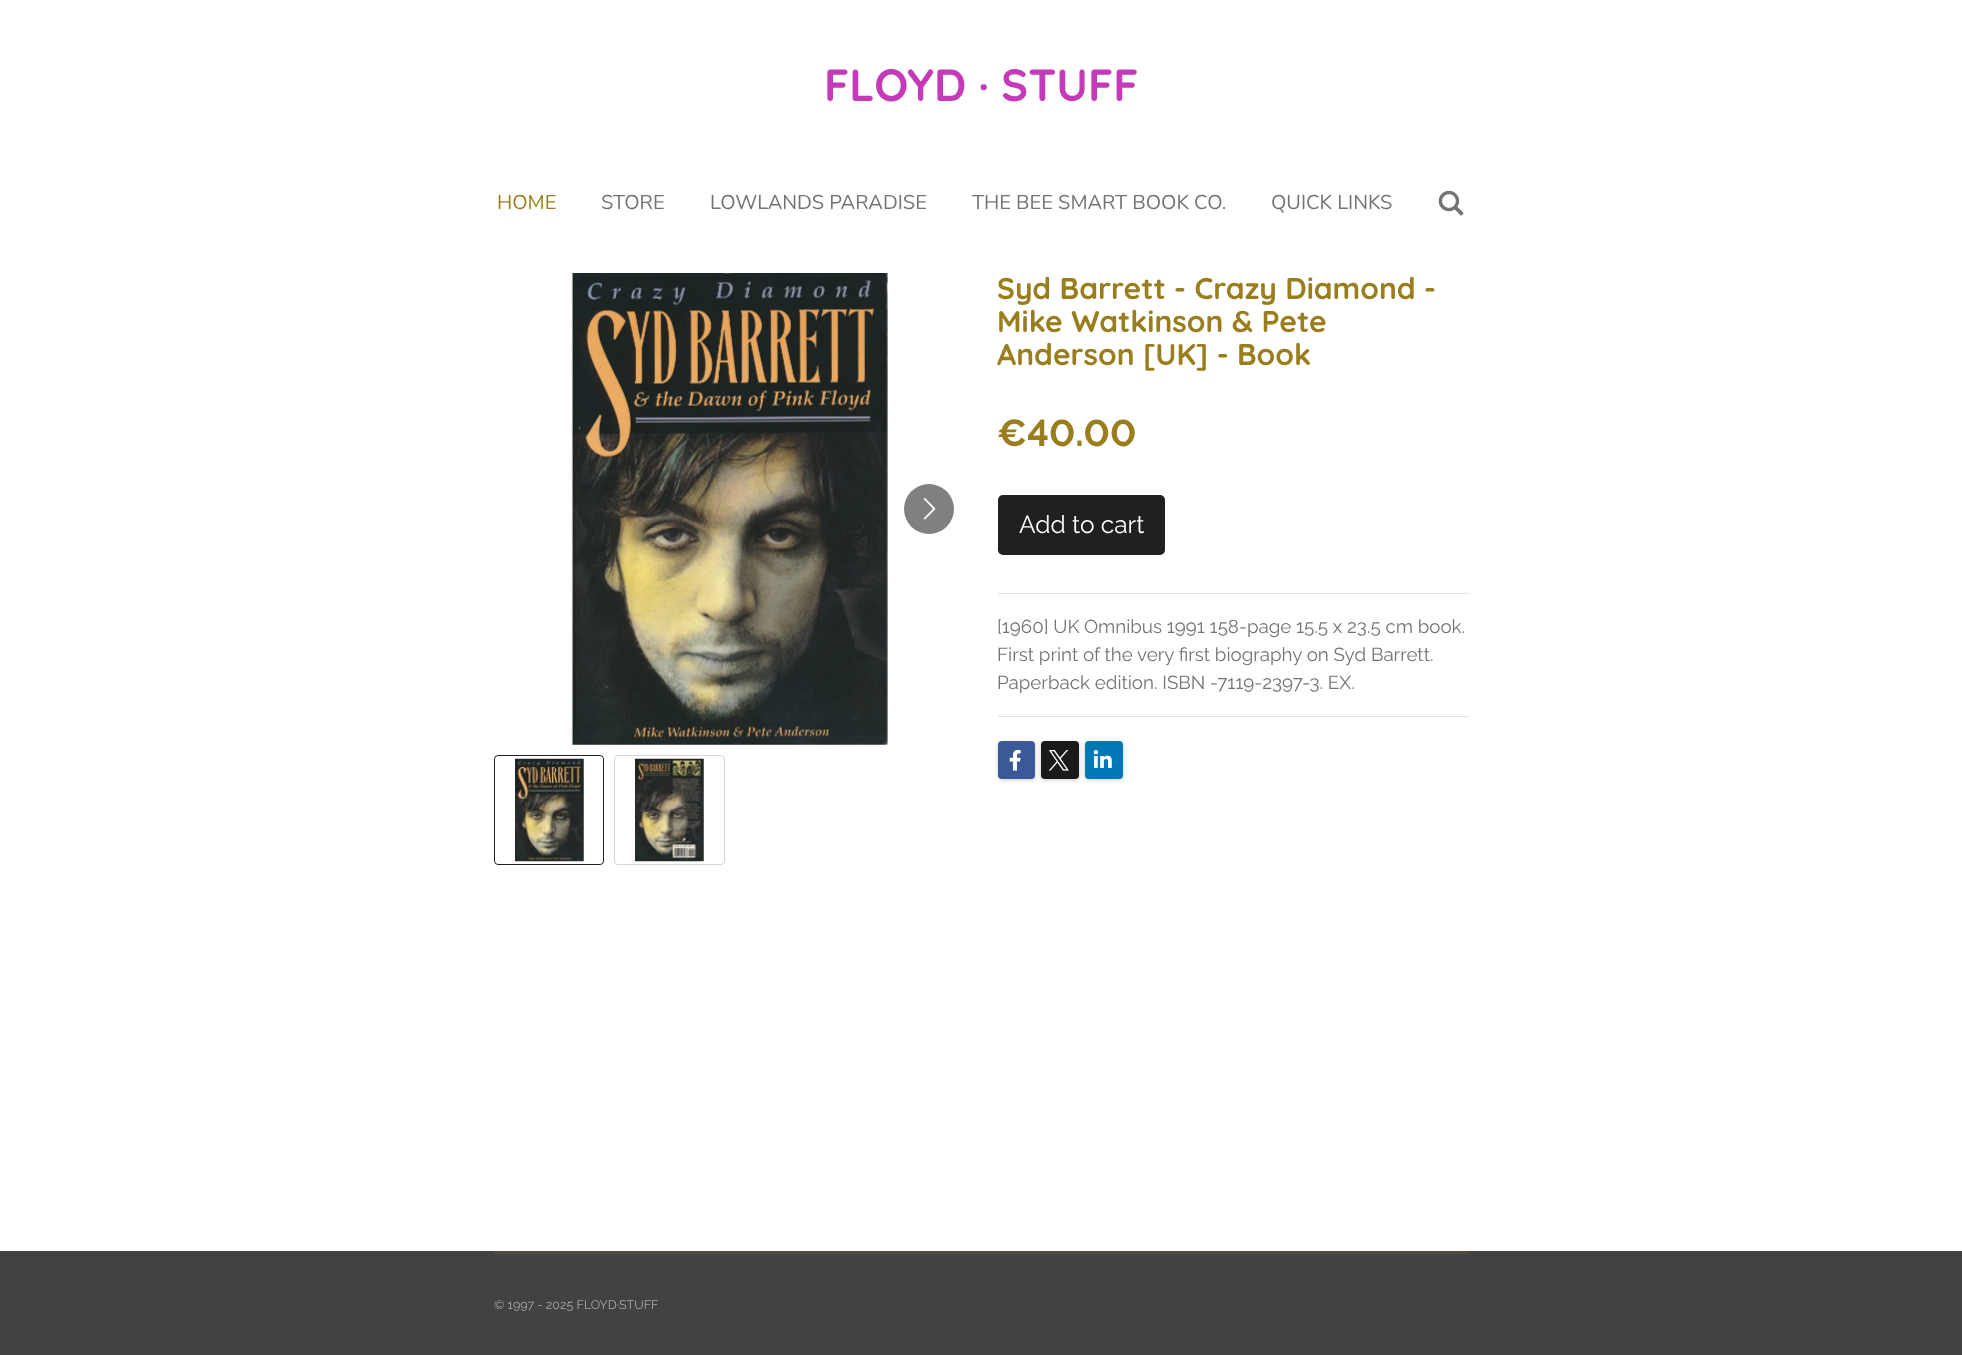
<!DOCTYPE html>
<meta charset="utf-8">
<style>body { margin: 0 } canvas { display: block }</style>
<canvas id="canvas" width="1962" height="1355"></canvas>
<img id="img1" src="img_01.png" hidden>
<img id="img2" src="img_02.png" hidden>
<img id="img3" src="img_03.png" hidden>
<img id="img4" src="img_04.png" hidden>
<img id="img5" src="img_05.png" hidden>
<img id="img6" src="img_06.png" hidden>
<img id="img7" src="img_07.png" hidden>
<img id="img8" src="img_08.png" hidden>
<script>
window.onload = function () {
	const canvas = document.getElementById("canvas");
	const ctx = canvas.getContext("2d");
	ctx.miterLimit = 4;
	ctx.fontKerning = "normal";
	function txt(s, x, y) {
		ctx.fillText(s, x, y);
	}
	function fill(x, y, w, h) {
		ctx.fillRect(x, y, w, h);
	}
	function round(x, y, w, h, r) {
		ctx.beginPath();
		ctx.roundRect(x, y, w, h, r);
		ctx.fill();
	}
	function img(id, x, y, w, h) {
		ctx.drawImage(document.getElementById(id), x, y, w, h);
	}

	ctx.fillStyle = "#FFFFFF";
	fill(0, 0, 1962, 1355);
	img("img1", 1438, 190, 26, 26);
	img("img2", 571, 273, 317, 472);
	ctx.fillStyle = "#808080";
	ctx.beginPath();
	ctx.arc(929, 509, 25, 0, Math.PI * 2);
	ctx.fill();
	img("img3", 923, 498, 13, 22);
	ctx.beginPath();
	ctx.roundRect(494.5, 755.5, 109, 109, 3.5);
	ctx.strokeStyle = "#202020";
	ctx.stroke();
	img("img4", 515, 758, 69, 104);
	ctx.beginPath();
	ctx.roundRect(614.5, 755.5, 110, 109, 3.5);
	ctx.strokeStyle = "#D5D5D5";
	ctx.stroke();
	img("img5", 635, 758, 69, 104);
	ctx.fillStyle = "#202020";
	round(998, 495, 167, 60, 5);
	ctx.fillStyle = "#E3E3E3";
	fill(998, 593, 471, 1);
	fill(998, 716, 471, 1);
	ctx.fillStyle = "rgba(0, 0, 0, 0.2)";
	ctx.filter = "blur(2px)";
	ctx.beginPath();
	ctx.roundRect(998, 743, 37, 37, 4);
	ctx.fill();
	ctx.filter = "none";
	ctx.fillStyle = "#3B5998";
	round(998, 741, 37, 38, 4);
	img("img6", 1009, 750, 12, 21);
	ctx.fillStyle = "rgba(0, 0, 0, 0.2)";
	ctx.filter = "blur(2px)";
	ctx.beginPath();
	ctx.roundRect(1041, 743, 38, 37, 4);
	ctx.fill();
	ctx.filter = "none";
	ctx.fillStyle = "#1A1A1A";
	round(1041, 741, 38, 38, 4);
	img("img7", 1048, 750, 21, 21);
	ctx.fillStyle = "rgba(0, 0, 0, 0.2)";
	ctx.filter = "blur(2px)";
	ctx.beginPath();
	ctx.roundRect(1085, 743, 38, 37, 4);
	ctx.fill();
	ctx.filter = "none";
	ctx.fillStyle = "#0077B5";
	round(1085, 741, 38, 38, 4);
	img("img8", 1093, 750, 19, 18);
	ctx.fillStyle = "#424242";
	fill(0, 1251, 1962, 104);
	ctx.fillStyle = "#4F4B3D";
	fill(494, 1251, 975, 3);
	ctx.font = "bold 45px Quicksand";
	ctx.fillStyle = "#C43AB9";
	txt("FLOYD · STUFF", 824, 101);
	ctx.font = "20px Nunito";
	ctx.fillStyle = "#9A7E1E";
	txt("HOME", 497, 209);
	ctx.fillStyle = "#737373";
	txt("STORE", 601, 209);
	txt("LOWLANDS PARADISE", 710, 209);
	txt("THE BEE SMART BOOK CO.", 972, 209);
	txt("QUICK LINKS", 1271, 209);
	ctx.font = "bold 30px Quicksand";
	ctx.fillStyle = "#9A7E1E";
	txt("Syd Barrett - Crazy Diamond -", 997, 299);
	txt("Mike Watkinson & Pete", 997, 332);
	txt("Anderson [UK] - Book", 997, 365);
	ctx.font = "bold 37.5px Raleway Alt";
	txt("€40.00", 997, 446);
	ctx.font = "24.5px Raleway";
	ctx.fillStyle = "#FFFFFF";
	txt("Add to cart", 1019, 533);
	ctx.font = "18.75px Raleway";
	ctx.fillStyle = "#737373";
	txt("[1960] UK Omnibus 1991 158-page 15.5 x 23.5 cm book.", 997, 633);
	txt("First print of the very first biography on Syd Barrett.", 997, 661);
	txt("Paperback edition. ISBN -7119-2397-3. EX.", 997, 689);
	ctx.font = "12.5px Raleway";
	ctx.fillStyle = "#A8A8A8";
	txt("© 1997 - 2025 FLOYD·STUFF", 494, 1309);
};
</script>
